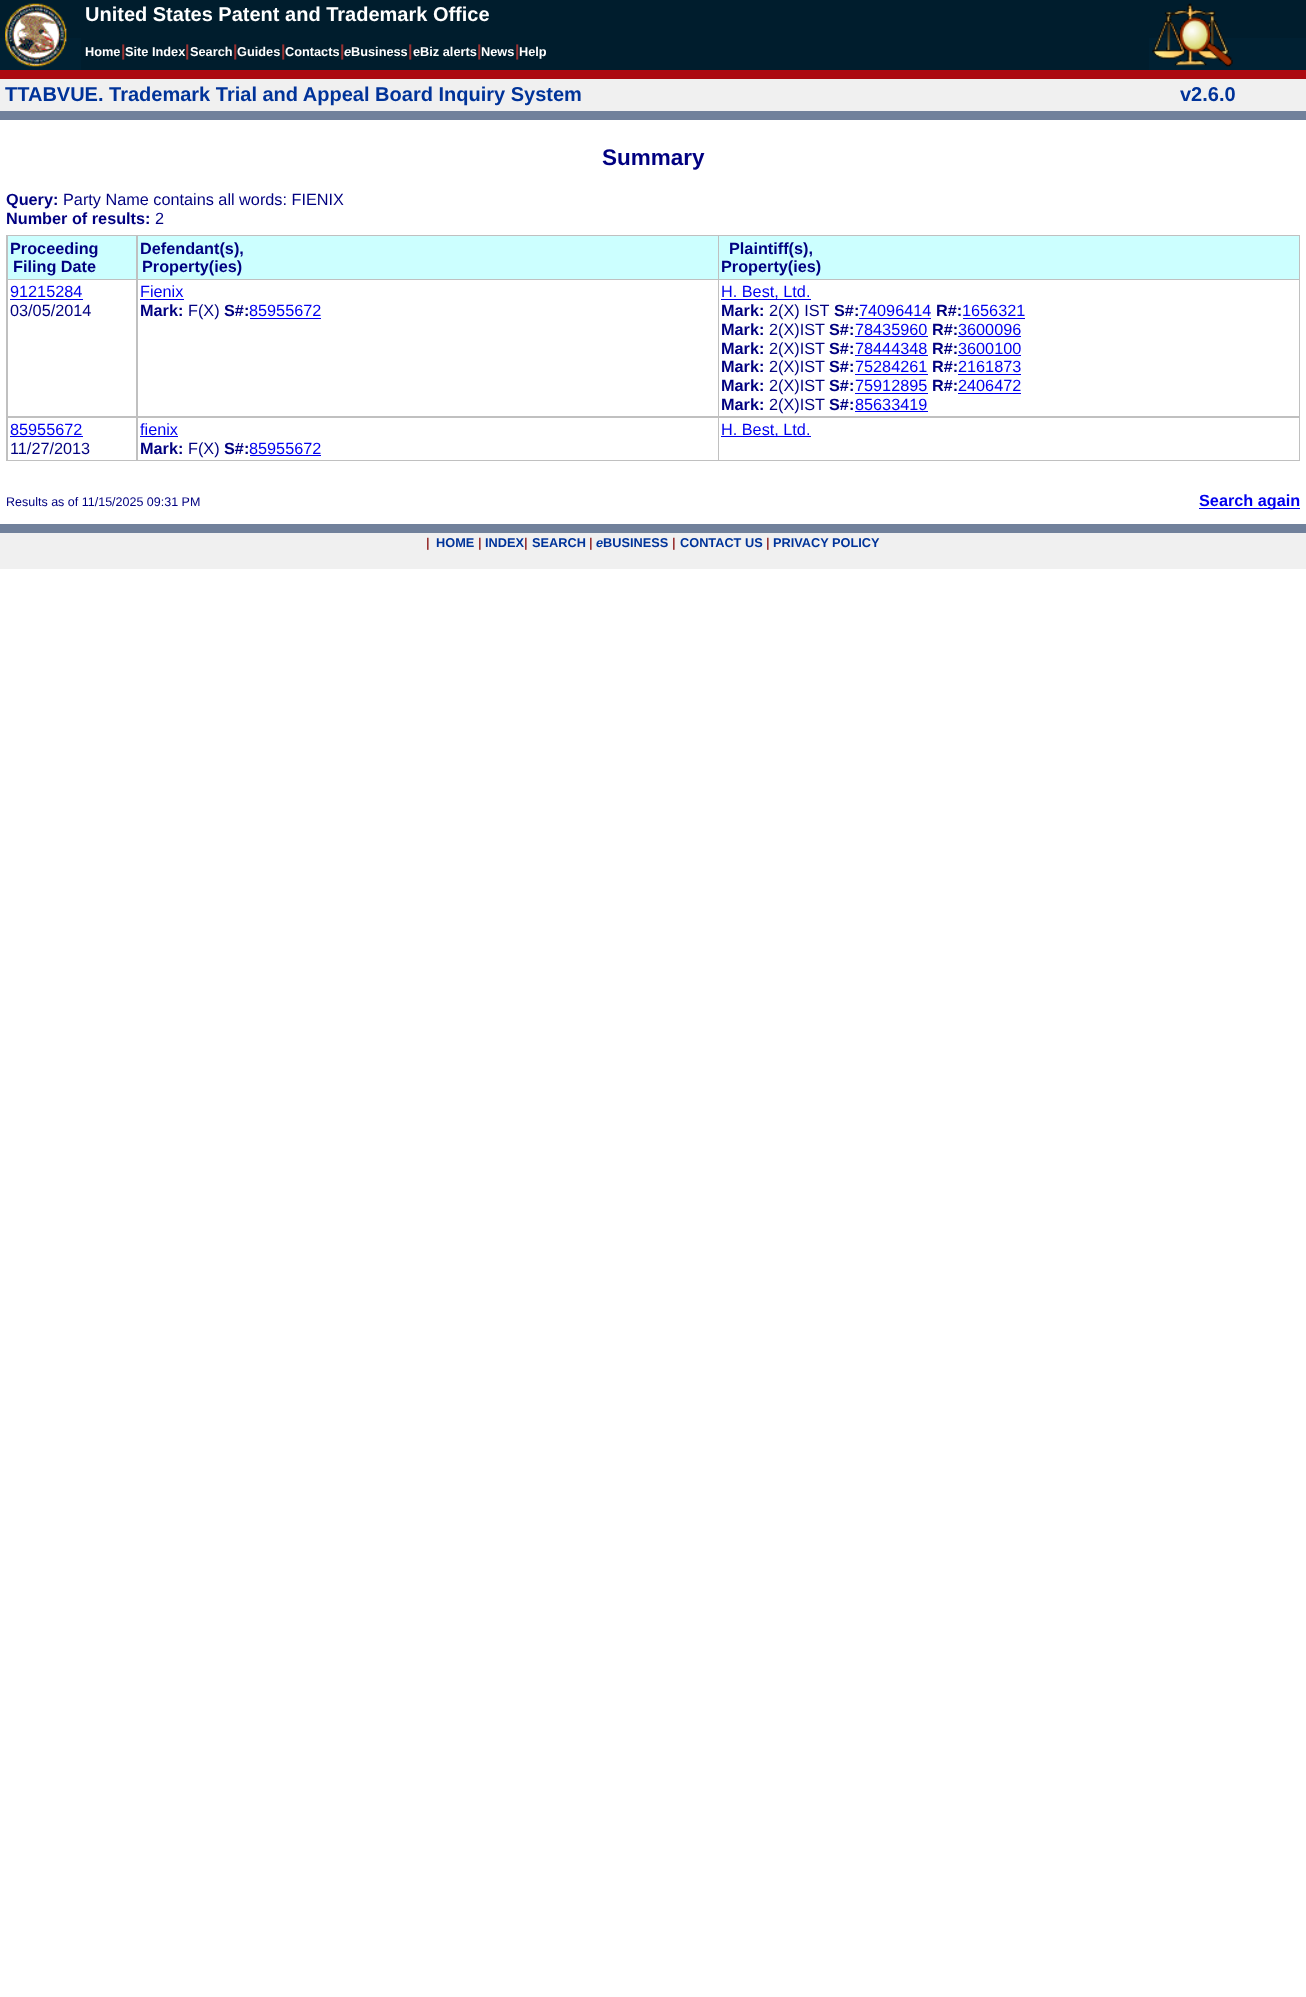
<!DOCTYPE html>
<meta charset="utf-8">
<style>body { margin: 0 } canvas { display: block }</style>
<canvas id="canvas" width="1306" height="1997"></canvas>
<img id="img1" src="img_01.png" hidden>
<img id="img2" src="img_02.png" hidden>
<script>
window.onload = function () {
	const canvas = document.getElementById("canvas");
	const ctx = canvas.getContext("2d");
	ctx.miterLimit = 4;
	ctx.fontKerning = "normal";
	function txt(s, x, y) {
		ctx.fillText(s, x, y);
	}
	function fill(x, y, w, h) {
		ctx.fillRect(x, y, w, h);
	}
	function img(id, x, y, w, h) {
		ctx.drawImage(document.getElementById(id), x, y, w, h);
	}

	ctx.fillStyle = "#FFFFFF";
	fill(0, 0, 1306, 1997);
	ctx.fillStyle = "#001D2D";
	fill(0, 0, 1306, 38);
	ctx.fillStyle = "#002032";
	fill(0, 38, 1306, 32);
	img("img1", 5, 3, 62, 64);
	img("img2", 1152, 3, 81, 64);
	ctx.fillStyle = "#001D2D";
	fill(81, 38, 1068, 32);
	ctx.fillStyle = "#AC0911";
	fill(0, 70, 1306, 9);
	ctx.fillStyle = "#F0F0F0";
	fill(0, 79, 1306, 32);
	ctx.fillStyle = "#71819B";
	fill(0, 111, 1306, 9);
	ctx.fillStyle = "#C0C0C0";
	fill(6, 235, 1294, 226);
	ctx.fillStyle = "#CCFFFF";
	fill(8, 236, 128, 43);
	fill(138, 236, 580, 43);
	fill(719, 236, 580, 43);
	ctx.fillStyle = "#FFFFFF";
	fill(8, 280, 128, 136);
	ctx.fillStyle = "#0000EE";
	fill(10, 299, 73, 1);
	ctx.fillStyle = "#FFFFFF";
	fill(138, 280, 580, 136);
	ctx.fillStyle = "#0000EE";
	fill(140, 299, 44, 1);
	fill(250, 318, 71, 1);
	ctx.fillStyle = "#FFFFFF";
	fill(719, 280, 580, 136);
	ctx.fillStyle = "#0000EE";
	fill(721, 299, 90, 1);
	fill(859, 318, 72, 1);
	fill(963, 318, 62, 1);
	fill(855, 336, 73, 1);
	fill(958, 336, 63, 1);
	fill(855, 355, 73, 1);
	fill(958, 355, 63, 1);
	fill(855, 374, 73, 1);
	fill(958, 374, 63, 1);
	fill(855, 393, 73, 1);
	fill(958, 393, 63, 1);
	fill(855, 411, 73, 1);
	ctx.fillStyle = "#FFFFFF";
	fill(8, 418, 128, 42);
	ctx.fillStyle = "#0000EE";
	fill(10, 436, 73, 1);
	ctx.fillStyle = "#FFFFFF";
	fill(138, 418, 580, 42);
	ctx.fillStyle = "#0000EE";
	fill(140, 436, 38, 1);
	fill(250, 455, 71, 1);
	ctx.fillStyle = "#FFFFFF";
	fill(719, 418, 580, 42);
	ctx.fillStyle = "#0000EE";
	fill(721, 436, 90, 1);
	fill(1199, 508, 101, 1);
	ctx.fillStyle = "#71819B";
	fill(0, 524, 1306, 9);
	ctx.fillStyle = "#F0F0F0";
	fill(0, 533, 1306, 36);
	ctx.font = "bold 20px Liberation Sans";
	ctx.fillStyle = "#FFFFFF";
	txt("United States Patent and Trademark Office", 85, 21);
	ctx.font = "bold 12.75px Liberation Sans";
	txt("Home", 85, 56);
	ctx.font = "bold 16px Liberation Sans";
	ctx.fillStyle = "#993333";
	txt("|", 121, 56);
	ctx.font = "bold 12.75px Liberation Sans";
	ctx.fillStyle = "#FFFFFF";
	txt("Site Index", 125, 56);
	ctx.font = "bold 16px Liberation Sans";
	ctx.fillStyle = "#993333";
	txt("|", 185, 56);
	ctx.font = "bold 12.75px Liberation Sans";
	ctx.fillStyle = "#FFFFFF";
	txt("Search", 190, 56);
	ctx.font = "bold 16px Liberation Sans";
	ctx.fillStyle = "#993333";
	txt("|", 233, 56);
	ctx.font = "bold 12.75px Liberation Sans";
	ctx.fillStyle = "#FFFFFF";
	txt("Guides", 237, 56);
	ctx.font = "bold 16px Liberation Sans";
	ctx.fillStyle = "#993333";
	txt("|", 281, 56);
	ctx.font = "bold 12.75px Liberation Sans";
	ctx.fillStyle = "#FFFFFF";
	txt("Contacts", 285, 56);
	ctx.font = "bold 16px Liberation Sans";
	ctx.fillStyle = "#993333";
	txt("|", 340, 56);
	ctx.font = "italic bold 12.75px Liberation Sans";
	ctx.fillStyle = "#FFFFFF";
	txt("e", 344, 56);
	ctx.font = "bold 12.75px Liberation Sans";
	txt("Business", 351, 56);
	ctx.font = "bold 16px Liberation Sans";
	ctx.fillStyle = "#993333";
	txt("|", 408, 56);
	ctx.font = "bold 12.75px Liberation Sans";
	ctx.fillStyle = "#FFFFFF";
	txt("eBiz alerts", 413, 56);
	ctx.font = "bold 16px Liberation Sans";
	ctx.fillStyle = "#993333";
	txt("|", 477, 56);
	ctx.font = "bold 12.75px Liberation Sans";
	ctx.fillStyle = "#FFFFFF";
	txt("News", 481, 56);
	ctx.font = "bold 16px Liberation Sans";
	ctx.fillStyle = "#993333";
	txt("|", 515, 56);
	ctx.font = "bold 12.75px Liberation Sans";
	ctx.fillStyle = "#FFFFFF";
	txt("Help", 519, 56);
	ctx.font = "bold 20px Liberation Sans";
	ctx.fillStyle = "#003399";
	txt("TTABVUE. Trademark Trial and Appeal Board Inquiry System", 5, 101);
	txt("v2.6.0", 1180, 101);
	ctx.font = "bold 22.5px Liberation Sans";
	ctx.fillStyle = "#000080";
	txt("Summary", 602, 165);
	ctx.font = "bold 16.25px Liberation Sans";
	txt("Query:", 6, 205);
	ctx.font = "16.25px Liberation Sans";
	txt("Party Name contains all words: FIENIX", 63, 205);
	ctx.font = "bold 16.25px Liberation Sans";
	txt("Number of results:", 6, 224);
	ctx.font = "16.25px Liberation Sans";
	txt("2", 155, 224);
	ctx.font = "bold 16.25px Liberation Sans";
	txt("Proceeding", 10, 254);
	txt("Filing Date", 13, 272);
	txt("Defendant(s),", 140, 254);
	txt("Property(ies)", 142, 272);
	txt("Plaintiff(s),", 729, 254);
	txt("Property(ies)", 721, 272);
	ctx.font = "16.25px Liberation Sans";
	ctx.fillStyle = "#0000EE";
	txt("91215284", 10, 297);
	ctx.fillStyle = "#000080";
	txt("03/05/2014", 10, 316);
	ctx.fillStyle = "#0000EE";
	txt("Fienix", 140, 297);
	ctx.font = "bold 16.25px Liberation Sans";
	ctx.fillStyle = "#000080";
	txt("Mark:", 140, 316);
	ctx.font = "16.25px Liberation Sans";
	txt("F(X)", 188, 316);
	ctx.font = "bold 16.25px Liberation Sans";
	txt("S#:", 224, 316);
	ctx.font = "16.25px Liberation Sans";
	ctx.fillStyle = "#0000EE";
	txt("85955672", 249, 316);
	txt("H. Best, Ltd.", 721, 297);
	ctx.font = "bold 16.25px Liberation Sans";
	ctx.fillStyle = "#000080";
	txt("Mark:", 721, 316);
	ctx.font = "16.25px Liberation Sans";
	txt("2(X) IST", 769, 316);
	ctx.font = "bold 16.25px Liberation Sans";
	txt("S#:", 834, 316);
	ctx.font = "16.25px Liberation Sans";
	ctx.fillStyle = "#0000EE";
	txt("74096414", 859, 316);
	ctx.font = "bold 16.25px Liberation Sans";
	ctx.fillStyle = "#000080";
	txt("R#:", 936, 316);
	ctx.font = "16.25px Liberation Sans";
	ctx.fillStyle = "#0000EE";
	txt("1656321", 962, 316);
	ctx.font = "bold 16.25px Liberation Sans";
	ctx.fillStyle = "#000080";
	txt("Mark:", 721, 335);
	ctx.font = "16.25px Liberation Sans";
	txt("2(X)IST", 769, 335);
	ctx.font = "bold 16.25px Liberation Sans";
	txt("S#:", 829, 335);
	ctx.font = "16.25px Liberation Sans";
	ctx.fillStyle = "#0000EE";
	txt("78435960", 855, 335);
	ctx.font = "bold 16.25px Liberation Sans";
	ctx.fillStyle = "#000080";
	txt("R#:", 932, 335);
	ctx.font = "16.25px Liberation Sans";
	ctx.fillStyle = "#0000EE";
	txt("3600096", 958, 335);
	ctx.font = "bold 16.25px Liberation Sans";
	ctx.fillStyle = "#000080";
	txt("Mark:", 721, 354);
	ctx.font = "16.25px Liberation Sans";
	txt("2(X)IST", 769, 354);
	ctx.font = "bold 16.25px Liberation Sans";
	txt("S#:", 829, 354);
	ctx.font = "16.25px Liberation Sans";
	ctx.fillStyle = "#0000EE";
	txt("78444348", 855, 354);
	ctx.font = "bold 16.25px Liberation Sans";
	ctx.fillStyle = "#000080";
	txt("R#:", 932, 354);
	ctx.font = "16.25px Liberation Sans";
	ctx.fillStyle = "#0000EE";
	txt("3600100", 958, 354);
	ctx.font = "bold 16.25px Liberation Sans";
	ctx.fillStyle = "#000080";
	txt("Mark:", 721, 372);
	ctx.font = "16.25px Liberation Sans";
	txt("2(X)IST", 769, 372);
	ctx.font = "bold 16.25px Liberation Sans";
	txt("S#:", 829, 372);
	ctx.font = "16.25px Liberation Sans";
	ctx.fillStyle = "#0000EE";
	txt("75284261", 855, 372);
	ctx.font = "bold 16.25px Liberation Sans";
	ctx.fillStyle = "#000080";
	txt("R#:", 932, 372);
	ctx.font = "16.25px Liberation Sans";
	ctx.fillStyle = "#0000EE";
	txt("2161873", 958, 372);
	ctx.font = "bold 16.25px Liberation Sans";
	ctx.fillStyle = "#000080";
	txt("Mark:", 721, 391);
	ctx.font = "16.25px Liberation Sans";
	txt("2(X)IST", 769, 391);
	ctx.font = "bold 16.25px Liberation Sans";
	txt("S#:", 829, 391);
	ctx.font = "16.25px Liberation Sans";
	ctx.fillStyle = "#0000EE";
	txt("75912895", 855, 391);
	ctx.font = "bold 16.25px Liberation Sans";
	ctx.fillStyle = "#000080";
	txt("R#:", 932, 391);
	ctx.font = "16.25px Liberation Sans";
	ctx.fillStyle = "#0000EE";
	txt("2406472", 958, 391);
	ctx.font = "bold 16.25px Liberation Sans";
	ctx.fillStyle = "#000080";
	txt("Mark:", 721, 410);
	ctx.font = "16.25px Liberation Sans";
	txt("2(X)IST", 769, 410);
	ctx.font = "bold 16.25px Liberation Sans";
	txt("S#:", 829, 410);
	ctx.font = "16.25px Liberation Sans";
	ctx.fillStyle = "#0000EE";
	txt("85633419", 855, 410);
	txt("85955672", 10, 435);
	ctx.fillStyle = "#000080";
	txt("11/27/2013", 10, 454);
	ctx.fillStyle = "#0000EE";
	txt("fienix", 140, 435);
	ctx.font = "bold 16.25px Liberation Sans";
	ctx.fillStyle = "#000080";
	txt("Mark:", 140, 454);
	ctx.font = "16.25px Liberation Sans";
	txt("F(X)", 188, 454);
	ctx.font = "bold 16.25px Liberation Sans";
	txt("S#:", 224, 454);
	ctx.font = "16.25px Liberation Sans";
	ctx.fillStyle = "#0000EE";
	txt("85955672", 249, 454);
	txt("H. Best, Ltd.", 721, 435);
	ctx.font = "12.5px Liberation Sans";
	ctx.fillStyle = "#000080";
	txt("Results as of 11/15/2025 09:31 PM", 6, 506);
	ctx.font = "bold 16.25px Liberation Sans";
	ctx.fillStyle = "#0000EE";
	txt("Search again", 1199, 506);
	ctx.font = "bold 12.75px Liberation Sans";
	ctx.fillStyle = "#993333";
	txt("|", 426, 547);
	ctx.fillStyle = "#003399";
	txt("HOME", 436, 547);
	ctx.fillStyle = "#993333";
	txt("|", 478, 547);
	ctx.fillStyle = "#003399";
	txt("INDEX", 485, 547);
	ctx.fillStyle = "#993333";
	txt("|", 524, 547);
	ctx.fillStyle = "#003399";
	txt("SEARCH", 532, 547);
	ctx.fillStyle = "#993333";
	txt("|", 589, 547);
	ctx.font = "italic bold 12.75px Liberation Sans";
	ctx.fillStyle = "#003399";
	txt("e", 596, 547);
	ctx.font = "bold 12.75px Liberation Sans";
	txt("BUSINESS", 603, 547);
	ctx.fillStyle = "#993333";
	txt("|", 672, 547);
	ctx.fillStyle = "#003399";
	txt("CONTACT US", 680, 547);
	ctx.fillStyle = "#993333";
	txt("|", 766, 547);
	ctx.fillStyle = "#003399";
	txt("PRIVACY POLICY", 773, 547);
};
</script>
